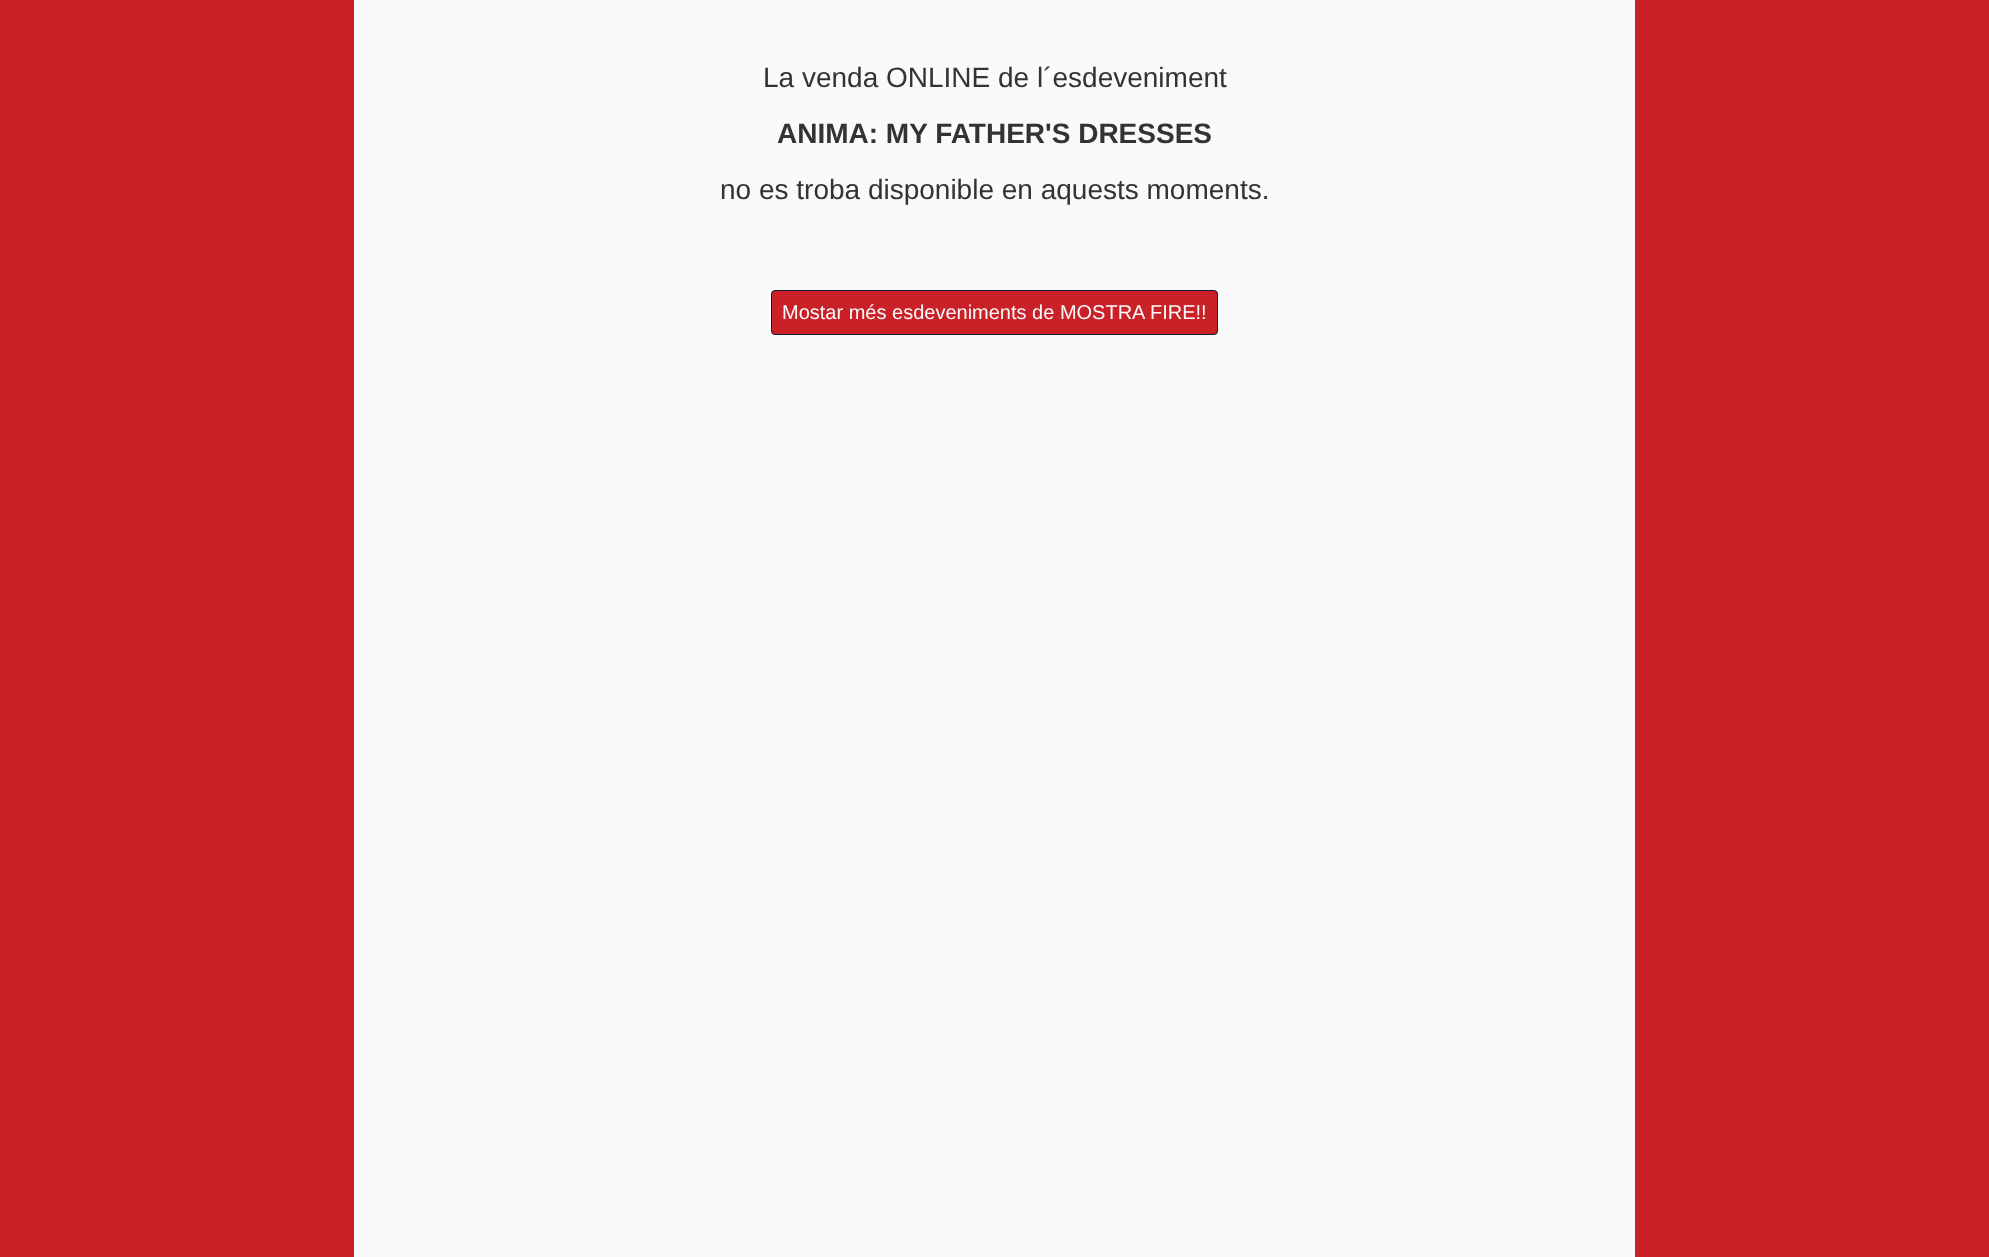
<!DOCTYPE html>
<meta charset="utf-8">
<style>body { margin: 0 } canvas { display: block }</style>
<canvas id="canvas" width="1989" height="1257"></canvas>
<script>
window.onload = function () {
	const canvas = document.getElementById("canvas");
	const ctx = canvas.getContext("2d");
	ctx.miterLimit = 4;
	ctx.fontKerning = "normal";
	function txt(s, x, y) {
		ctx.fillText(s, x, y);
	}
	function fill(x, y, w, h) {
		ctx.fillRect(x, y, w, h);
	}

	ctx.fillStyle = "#CA2027";
	fill(0, 0, 1989, 1257);
	ctx.fillStyle = "#FAFAFA";
	fill(354, 0, 1281, 1257);
	ctx.fillStyle = "#CA2027";
	ctx.beginPath();
	ctx.roundRect(771.5, 290.5, 446, 44, 3.5);
	ctx.fill();
	ctx.strokeStyle = "#0F1D30";
	ctx.stroke();
	ctx.font = "28px Liberation Sans";
	ctx.fillStyle = "#333333";
	txt("La venda ONLINE de l´esdeveniment", 763, 87);
	ctx.font = "bold 28px Liberation Sans";
	txt("ANIMA: MY FATHER'S DRESSES", 777, 143);
	ctx.font = "28px Liberation Sans";
	txt("no es troba disponible en aquests moments.", 720, 199);
	ctx.font = "20px Liberation Sans";
	ctx.fillStyle = "#FAFAFA";
	txt("Mostar més esdeveniments de MOSTRA FIRE!!", 782, 319);
};
</script>
